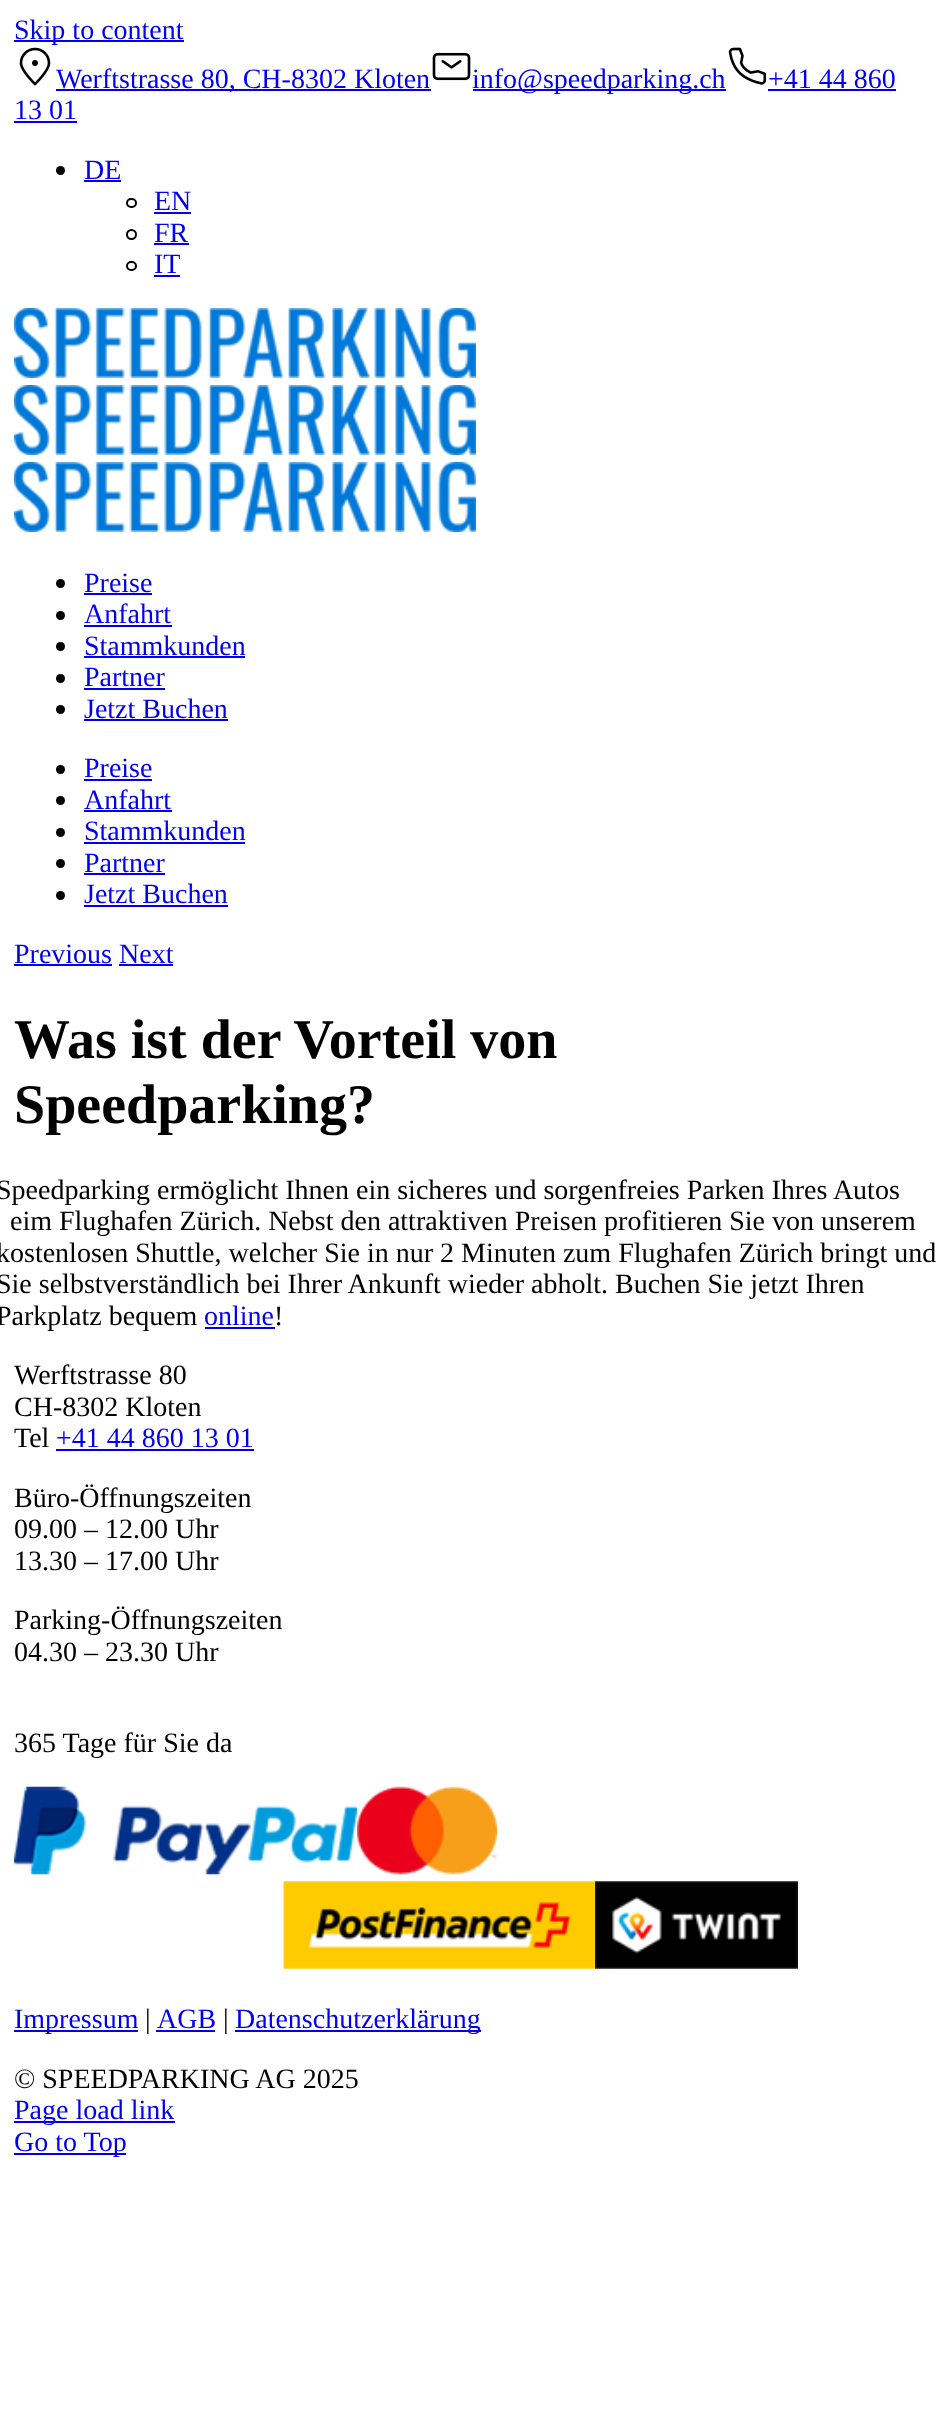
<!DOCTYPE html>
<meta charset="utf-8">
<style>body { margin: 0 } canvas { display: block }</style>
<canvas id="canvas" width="942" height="2417"></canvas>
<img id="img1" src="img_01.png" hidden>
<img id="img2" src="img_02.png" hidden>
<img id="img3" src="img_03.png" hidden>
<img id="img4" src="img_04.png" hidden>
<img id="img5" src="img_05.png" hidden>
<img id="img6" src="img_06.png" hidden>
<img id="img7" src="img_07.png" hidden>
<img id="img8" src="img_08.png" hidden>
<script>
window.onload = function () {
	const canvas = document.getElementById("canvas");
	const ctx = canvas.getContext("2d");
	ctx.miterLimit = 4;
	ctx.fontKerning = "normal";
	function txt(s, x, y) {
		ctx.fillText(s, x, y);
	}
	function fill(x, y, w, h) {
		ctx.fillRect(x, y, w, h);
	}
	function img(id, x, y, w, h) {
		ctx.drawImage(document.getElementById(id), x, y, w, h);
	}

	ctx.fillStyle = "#FFFFFF";
	fill(0, 0, 942, 2417);
	ctx.fillStyle = "#0000EE";
	fill(14, 40, 170, 2);
	img("img1", 19, 47, 32, 39);
	fill(56, 89, 375, 2);
	img("img2", 432, 52, 39, 29);
	fill(473, 89, 253, 2);
	img("img3", 728, 47, 39, 38);
	fill(768, 89, 128, 2);
	fill(14, 121, 63, 2);
	ctx.fillStyle = "#000000";
	ctx.beginPath();
	ctx.arc(60.5, 170.5, 4.5, 0, Math.PI * 2);
	ctx.fill();
	ctx.fillStyle = "#0000EE";
	fill(84, 180, 37, 2);
	ctx.beginPath();
	ctx.roundRect(127, 199, 9, 8, 4);
	ctx.strokeStyle = "#000000";
	ctx.lineWidth = 2;
	ctx.stroke();
	fill(154, 212, 37, 2);
	ctx.beginPath();
	ctx.arc(131.5, 234.5, 4.5, 0, Math.PI * 2);
	ctx.stroke();
	fill(154, 243, 35, 2);
	ctx.beginPath();
	ctx.roundRect(127, 262, 9, 8, 4);
	ctx.stroke();
	fill(154, 275, 26, 2);
	img("img4", 14, 308, 462, 70);
	img("img4", 14, 385, 462, 70);
	img("img4", 14, 462, 462, 70);
	ctx.fillStyle = "#000000";
	ctx.beginPath();
	ctx.arc(60.5, 583.5, 4.5, 0, Math.PI * 2);
	ctx.fill();
	ctx.fillStyle = "#0000EE";
	fill(84, 593, 68, 2);
	ctx.fillStyle = "#000000";
	ctx.beginPath();
	ctx.arc(60.5, 615.5, 4.5, 0, Math.PI * 2);
	ctx.fill();
	ctx.fillStyle = "#0000EE";
	fill(84, 625, 88, 2);
	ctx.fillStyle = "#000000";
	ctx.beginPath();
	ctx.arc(60.5, 646.5, 4.5, 0, Math.PI * 2);
	ctx.fill();
	ctx.fillStyle = "#0000EE";
	fill(84, 656, 161, 2);
	ctx.fillStyle = "#000000";
	ctx.beginPath();
	ctx.arc(60.5, 678.5, 4.5, 0, Math.PI * 2);
	ctx.fill();
	ctx.fillStyle = "#0000EE";
	fill(84, 688, 81, 2);
	ctx.fillStyle = "#000000";
	ctx.beginPath();
	ctx.arc(60.5, 709.5, 4.5, 0, Math.PI * 2);
	ctx.fill();
	ctx.fillStyle = "#0000EE";
	fill(84, 719, 144, 2);
	ctx.fillStyle = "#000000";
	ctx.beginPath();
	ctx.arc(60.5, 769.5, 4.5, 0, Math.PI * 2);
	ctx.fill();
	ctx.fillStyle = "#0000EE";
	fill(84, 779, 68, 2);
	ctx.fillStyle = "#000000";
	ctx.beginPath();
	ctx.arc(60.5, 800.5, 4.5, 0, Math.PI * 2);
	ctx.fill();
	ctx.fillStyle = "#0000EE";
	fill(84, 810, 88, 2);
	ctx.fillStyle = "#000000";
	ctx.beginPath();
	ctx.arc(60.5, 832.5, 4.5, 0, Math.PI * 2);
	ctx.fill();
	ctx.fillStyle = "#0000EE";
	fill(84, 842, 161, 2);
	ctx.fillStyle = "#000000";
	ctx.beginPath();
	ctx.arc(60.5, 863.5, 4.5, 0, Math.PI * 2);
	ctx.fill();
	ctx.fillStyle = "#0000EE";
	fill(84, 873, 81, 2);
	ctx.fillStyle = "#000000";
	ctx.beginPath();
	ctx.arc(60.5, 895.5, 4.5, 0, Math.PI * 2);
	ctx.fill();
	ctx.fillStyle = "#0000EE";
	fill(84, 905, 144, 2);
	fill(14, 964, 98, 2);
	fill(119, 964, 54, 2);
	fill(205, 1327, 70, 2);
	fill(56, 1449, 198, 2);
	img("img5", 14, 1786, 343, 89);
	img("img6", 357, 1786, 140, 89);
	img("img7", 283, 1881, 312, 88);
	img("img8", 595, 1881, 203, 88);
	fill(14, 2030, 124, 2);
	fill(156, 2030, 59, 2);
	fill(235, 2030, 246, 2);
	fill(14, 2121, 161, 2);
	fill(14, 2153, 112, 2);
	ctx.font = "28px Liberation Serif";
	txt("Skip to content", 14, 39);
	txt("Werftstrasse 80, CH-8302 Kloten", 56, 88);
	txt("info@speedparking.ch", 472, 88);
	txt("+41 44 860", 768, 88);
	txt("13 01", 14, 119);
	txt("DE", 84, 179);
	txt("EN", 154, 210);
	txt("FR", 154, 242);
	txt("IT", 154, 273);
	txt("Preise", 84, 592);
	txt("Anfahrt", 84, 623);
	txt("Stammkunden", 84, 655);
	txt("Partner", 84, 686);
	txt("Jetzt Buchen", 84, 718);
	txt("Preise", 84, 777);
	txt("Anfahrt", 84, 809);
	txt("Stammkunden", 84, 840);
	txt("Partner", 84, 872);
	txt("Jetzt Buchen", 84, 903);
	txt("Previous Next", 14, 963);
	ctx.font = "bold 56px Liberation Serif";
	ctx.fillStyle = "#000000";
	txt("Was ist der Vorteil von", 14, 1058);
	txt("Speedparking?", 14, 1123);
	ctx.font = "28px Liberation Serif";
	txt("Speedparking ermöglicht Ihnen ein sicheres und sorgenfreies Parken Ihres Autos", -4, 1199);
	txt("eim Flughafen Zürich. Nebst den attraktiven Preisen profitieren Sie von unserem", 10, 1230);
	txt("kostenlosen Shuttle, welcher Sie in nur 2 Minuten zum Flughafen Zürich bringt und", -4, 1262);
	txt("Sie selbstverständlich bei Ihrer Ankunft wieder abholt. Buchen Sie jetzt Ihren", -4, 1293);
	txt("Parkplatz bequem", -4, 1325);
	ctx.fillStyle = "#0000EE";
	txt("online", 204, 1325);
	ctx.fillStyle = "#000000";
	txt("!", 274, 1325);
	txt("Werftstrasse 80", 14, 1384);
	txt("CH-8302 Kloten", 14, 1416);
	txt("Tel", 14, 1447);
	ctx.fillStyle = "#0000EE";
	txt("+41 44 860 13 01", 56, 1447);
	ctx.fillStyle = "#000000";
	txt("Büro-Öffnungszeiten", 14, 1507);
	txt("09.00 – 12.00 Uhr", 14, 1538);
	txt("13.30 – 17.00 Uhr", 14, 1570);
	txt("Parking-Öffnungszeiten", 14, 1629);
	txt("04.30 – 23.30 Uhr", 14, 1661);
	txt("365 Tage für Sie da", 14, 1752);
	ctx.fillStyle = "#0000EE";
	txt("Impressum", 14, 2028);
	ctx.fillStyle = "#000000";
	txt("|", 145, 2028);
	ctx.fillStyle = "#0000EE";
	txt("AGB", 157, 2028);
	ctx.fillStyle = "#000000";
	txt("|", 223, 2028);
	ctx.fillStyle = "#0000EE";
	txt("Datenschutzerklärung", 235, 2028);
	ctx.fillStyle = "#000000";
	txt("© SPEEDPARKING AG 2025", 14, 2088);
	ctx.fillStyle = "#0000EE";
	txt("Page load link", 14, 2119);
	txt("Go to Top", 14, 2151);
};
</script>
